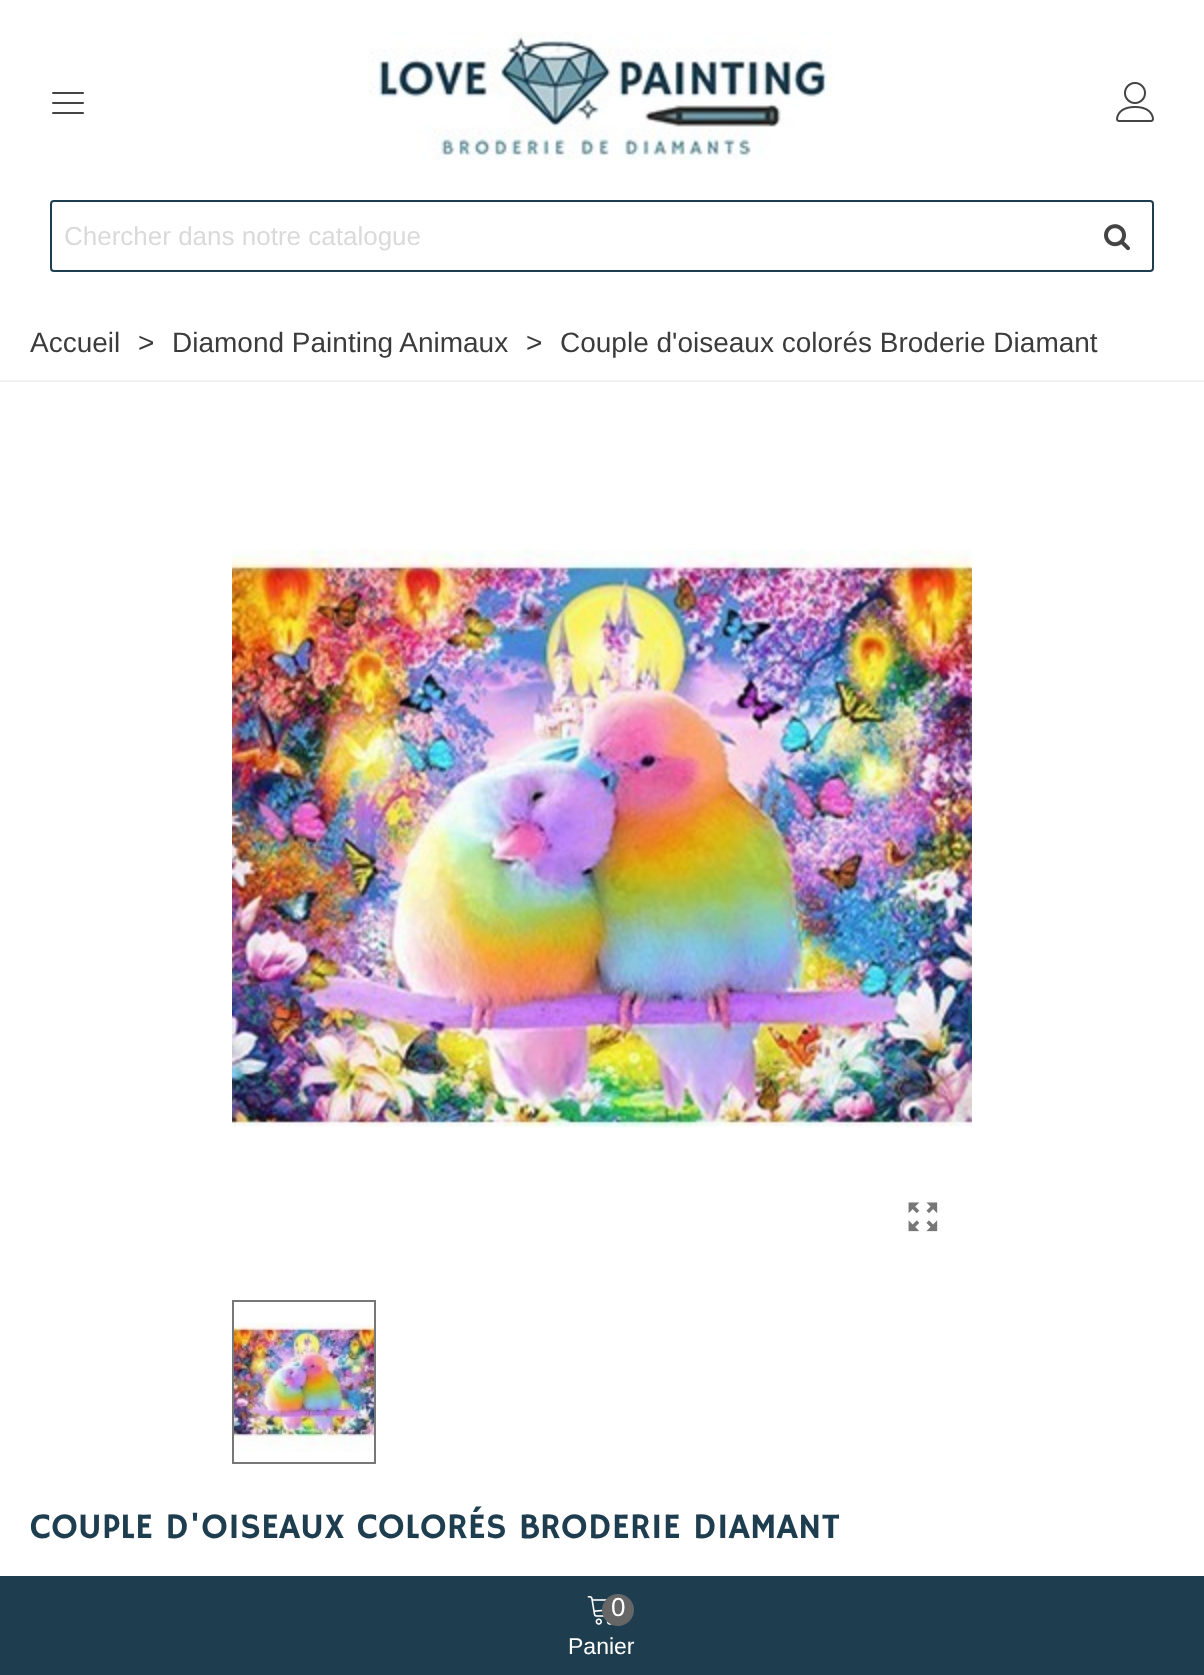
<!DOCTYPE html>
<meta charset="utf-8">
<style>body { margin: 0 } canvas { display: block }</style>
<canvas id="canvas" width="1204" height="1675"></canvas>
<img id="img1" src="img_01.png" hidden>
<img id="img2" src="img_02.png" hidden>
<img id="img3" src="img_03.png" hidden>
<img id="img4" src="img_04.png" hidden>
<img id="img5" src="img_05.png" hidden>
<img id="img6" src="img_06.png" hidden>
<img id="img7" src="img_07.png" hidden>
<img id="img8" src="img_08.png" hidden>
<script>
window.onload = function () {
	const canvas = document.getElementById("canvas");
	const ctx = canvas.getContext("2d");
	ctx.miterLimit = 4;
	ctx.fontKerning = "normal";
	function txt(s, x, y) {
		ctx.fillText(s, x, y);
	}
	function fill(x, y, w, h) {
		ctx.fillRect(x, y, w, h);
	}
	function img(id, x, y, w, h) {
		ctx.drawImage(document.getElementById(id), x, y, w, h);
	}

	ctx.fillStyle = "#FFFFFF";
	fill(0, 0, 1204, 1675);
	img("img1", 52, 92, 32, 22);
	img("img2", 368, 32, 465, 128);
	img("img3", 1116, 82, 38, 40);
	ctx.beginPath();
	ctx.roundRect(51, 201, 1102, 70, 3);
	ctx.strokeStyle = "#1E3E50";
	ctx.lineWidth = 2;
	ctx.stroke();
	ctx.beginPath();
	ctx.roundRect(52, 202, 1034, 68, [4, 0, 0, 4]);
	ctx.fill();
	img("img4", 1104, 224, 26, 27);
	ctx.fillStyle = "#F2F2F2";
	fill(0, 380, 1204, 2);
	img("img5", 232, 549, 740, 579);
	img("img6", 908, 1202, 30, 30);
	ctx.strokeStyle = "#777777";
	ctx.strokeRect(233, 1301, 142, 162);
	img("img7", 234, 1322, 140, 130);
	ctx.fillStyle = "#1E3E50";
	fill(0, 1576, 1204, 99);
	img("img8", 587, 1596, 25, 29);
	ctx.fillStyle = "#666666";
	ctx.beginPath();
	ctx.arc(618, 1610, 16, 0, Math.PI * 2);
	ctx.fill();
	ctx.font = "26px Liberation Sans";
	ctx.fillStyle = "#DADADA";
	txt("Chercher dans notre catalogue", 64, 245);
	ctx.font = "28px Liberation Sans";
	ctx.fillStyle = "#3B3B3B";
	txt("Accueil", 30, 352);
	txt(">", 138, 352);
	txt("Diamond Painting Animaux", 172, 352);
	txt(">", 526, 352);
	txt("Couple d'oiseaux colorés Broderie Diamant", 560, 352);
	ctx.font = "36px Hammersmith One";
	ctx.fillStyle = "#1E3E50";
	txt("COUPLE D'OISEAUX COLORÉS BRODERIE DIAMANT", 30, 1538);
	ctx.font = "26px Liberation Sans";
	ctx.fillStyle = "#FFFFFF";
	txt("0", 611, 1616);
	ctx.font = "23px Liberation Sans";
	txt("Panier", 568, 1654);
};
</script>
